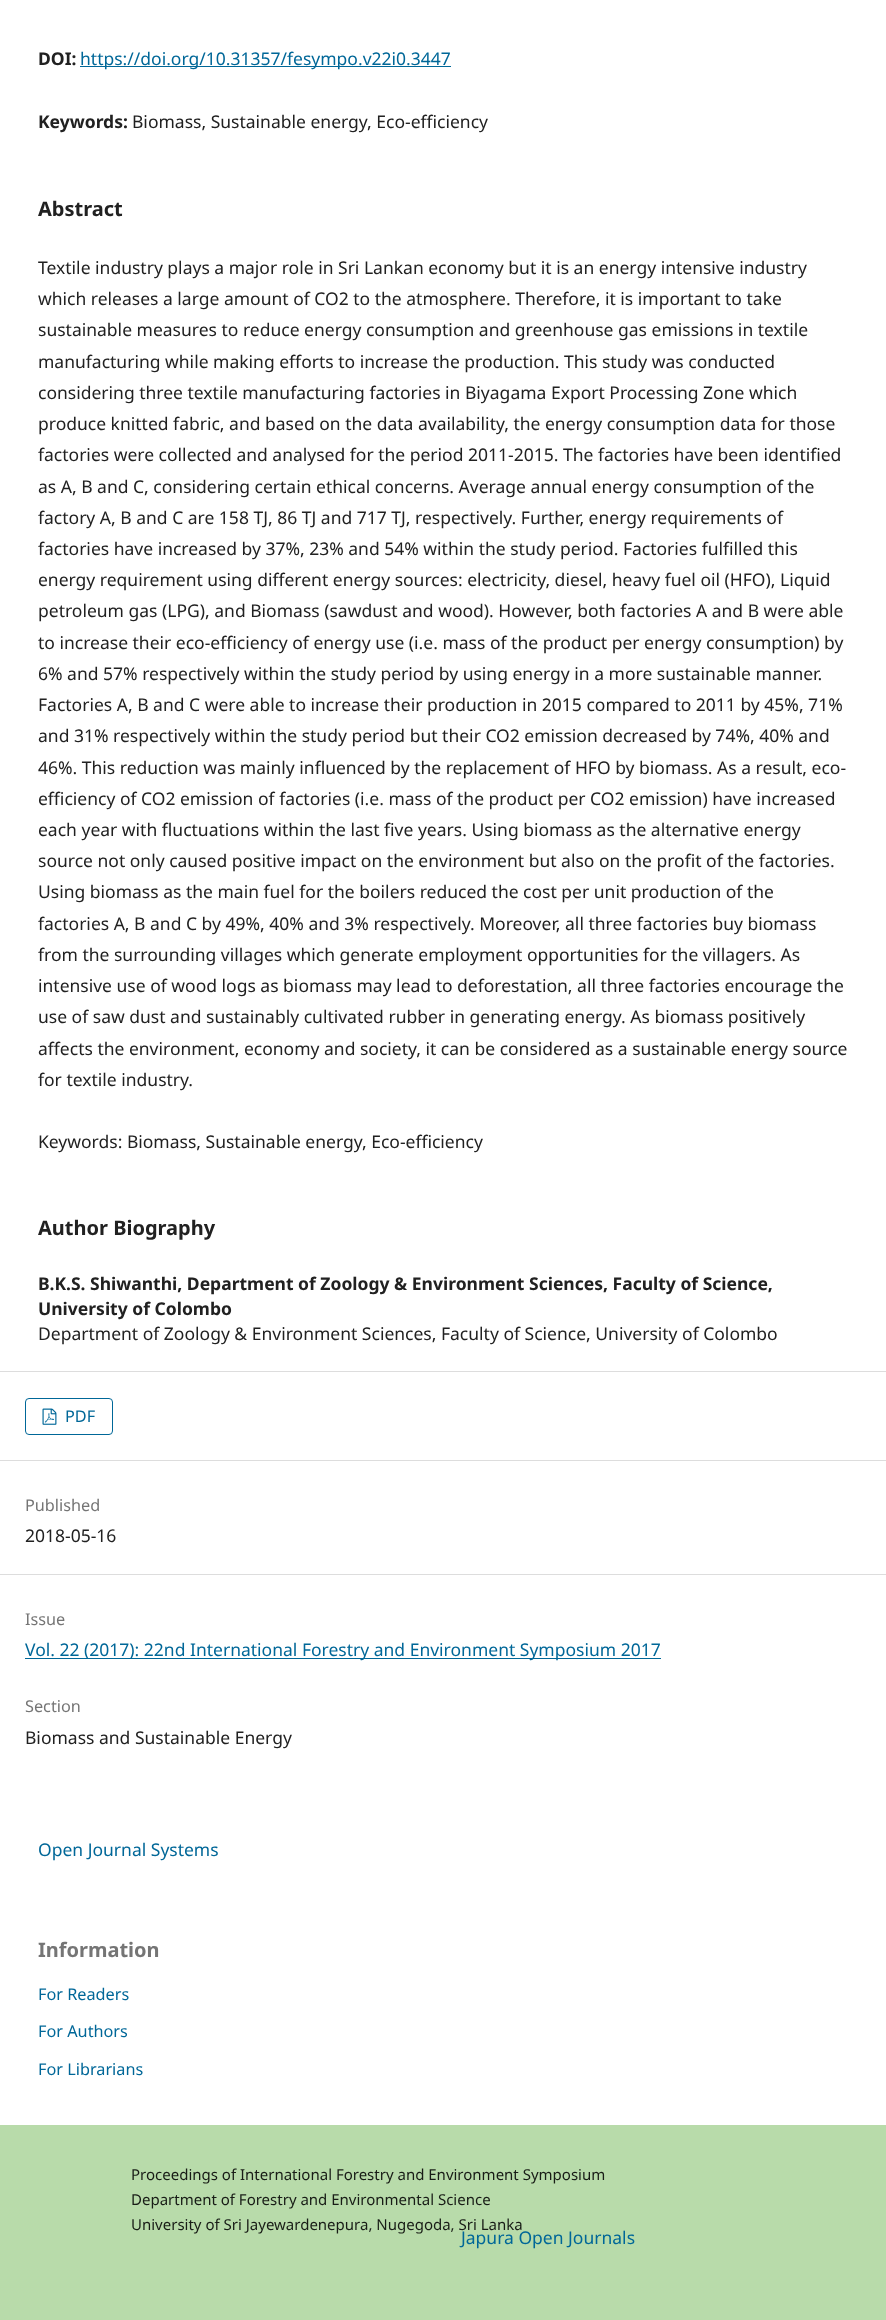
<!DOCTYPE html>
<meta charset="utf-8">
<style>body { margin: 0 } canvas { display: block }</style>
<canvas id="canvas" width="886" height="2320"></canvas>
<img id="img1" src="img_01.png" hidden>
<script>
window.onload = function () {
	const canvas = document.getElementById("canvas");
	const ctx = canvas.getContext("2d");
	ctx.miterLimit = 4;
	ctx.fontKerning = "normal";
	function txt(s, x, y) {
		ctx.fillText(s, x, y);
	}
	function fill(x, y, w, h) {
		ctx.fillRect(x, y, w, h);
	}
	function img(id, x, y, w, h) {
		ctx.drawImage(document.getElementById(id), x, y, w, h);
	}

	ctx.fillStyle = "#FFFFFF";
	fill(0, 0, 886, 2320);
	ctx.fillStyle = "#006798";
	fill(80, 66, 371, 1);
	ctx.fillStyle = "#DDDDDD";
	fill(0, 1371, 886, 1);
	fill(0, 1460, 886, 1);
	ctx.beginPath();
	ctx.roundRect(25.5, 1398.5, 87, 36, 3.5);
	ctx.strokeStyle = "#006798";
	ctx.stroke();
	img("img1", 42, 1408, 15, 17);
	fill(0, 1574, 886, 1);
	ctx.fillStyle = "#006798";
	fill(25, 1658, 636, 1);
	ctx.fillStyle = "#B8DBAA";
	fill(0, 2125, 886, 195);
	ctx.font = "bold 17.5px Noto Sans";
	ctx.fillStyle = "#212121";
	txt("DOI:", 38, 65);
	ctx.font = "17.5px Noto Sans";
	ctx.fillStyle = "#006798";
	txt("https://doi.org/10.31357/fesympo.v22i0.3447", 80, 65);
	ctx.font = "bold 17.5px Noto Sans";
	ctx.fillStyle = "#212121";
	txt("Keywords:", 38, 128);
	ctx.font = "17.5px Noto Sans";
	txt("Biomass, Sustainable energy, Eco-efficiency", 132, 128);
	ctx.font = "bold 20px Noto Sans";
	txt("Abstract", 38, 216);
	ctx.font = "17.5px Noto Sans";
	txt("Textile industry plays a major role in Sri Lankan economy but it is an energy intensive industry", 38, 274);
	txt("which releases a large amount of CO2 to the atmosphere. Therefore, it is important to take", 38, 305);
	txt("sustainable measures to reduce energy consumption and greenhouse gas emissions in textile", 38, 336);
	txt("manufacturing while making efforts to increase the production. This study was conducted", 38, 368);
	txt("considering three textile manufacturing factories in Biyagama Export Processing Zone which", 38, 399);
	txt("produce knitted fabric, and based on the data availability, the energy consumption data for those", 38, 430);
	txt("factories were collected and analysed for the period 2011-2015. The factories have been identified", 38, 461);
	txt("as A, B and C, considering certain ethical concerns. Average annual energy consumption of the", 38, 493);
	txt("factory A, B and C are 158 TJ, 86 TJ and 717 TJ, respectively. Further, energy requirements of", 38, 524);
	txt("factories have increased by 37%, 23% and 54% within the study period. Factories fulfilled this", 38, 555);
	txt("energy requirement using different energy sources: electricity, diesel, heavy fuel oil (HFO), Liquid", 38, 586);
	txt("petroleum gas (LPG), and Biomass (sawdust and wood). However, both factories A and B were able", 38, 617);
	txt("to increase their eco-efficiency of energy use (i.e. mass of the product per energy consumption) by", 38, 649);
	txt("6% and 57% respectively within the study period by using energy in a more sustainable manner.", 38, 680);
	txt("Factories A, B and C were able to increase their production in 2015 compared to 2011 by 45%, 71%", 38, 711);
	txt("and 31% respectively within the study period but their CO2 emission decreased by 74%, 40% and", 38, 742);
	txt("46%. This reduction was mainly influenced by the replacement of HFO by biomass. As a result, eco-", 38, 774);
	txt("efficiency of CO2 emission of factories (i.e. mass of the product per CO2 emission) have increased", 38, 805);
	txt("each year with fluctuations within the last five years. Using biomass as the alternative energy", 38, 836);
	txt("source not only caused positive impact on the environment but also on the profit of the factories.", 38, 867);
	txt("Using biomass as the main fuel for the boilers reduced the cost per unit production of the", 38, 898);
	txt("factories A, B and C by 49%, 40% and 3% respectively. Moreover, all three factories buy biomass", 38, 930);
	txt("from the surrounding villages which generate employment opportunities for the villagers. As", 38, 961);
	txt("intensive use of wood logs as biomass may lead to deforestation, all three factories encourage the", 38, 992);
	txt("use of saw dust and sustainably cultivated rubber in generating energy. As biomass positively", 38, 1023);
	txt("affects the environment, economy and society, it can be considered as a sustainable energy source", 38, 1055);
	txt("for textile industry.", 38, 1086);
	txt("Keywords: Biomass, Sustainable energy, Eco-efficiency", 38, 1148);
	ctx.font = "bold 20px Noto Sans";
	txt("Author Biography", 38, 1235);
	ctx.font = "bold 17.5px Noto Sans";
	txt("B.K.S. Shiwanthi, Department of Zoology & Environment Sciences, Faculty of Science,", 38, 1290);
	txt("University of Colombo", 38, 1315);
	ctx.font = "17.5px Noto Sans";
	txt("Department of Zoology & Environment Sciences, Faculty of Science, University of Colombo", 38, 1340);
	ctx.font = "16.25px Noto Sans";
	ctx.fillStyle = "#006798";
	txt("PDF", 65, 1422);
	ctx.fillStyle = "#757575";
	txt("Published", 25, 1511);
	ctx.font = "17.5px Noto Sans";
	ctx.fillStyle = "#212121";
	txt("2018-05-16", 25, 1542);
	ctx.font = "16.25px Noto Sans";
	ctx.fillStyle = "#757575";
	txt("Issue", 25, 1625);
	ctx.font = "17.5px Noto Sans";
	ctx.fillStyle = "#006798";
	txt("Vol. 22 (2017): 22nd International Forestry and Environment Symposium 2017", 25, 1656);
	ctx.font = "16.25px Noto Sans";
	ctx.fillStyle = "#757575";
	txt("Section", 25, 1712);
	ctx.font = "17.5px Noto Sans";
	ctx.fillStyle = "#212121";
	txt("Biomass and Sustainable Energy", 25, 1744);
	ctx.fillStyle = "#006798";
	txt("Open Journal Systems", 38, 1856);
	ctx.font = "bold 20px Noto Sans";
	ctx.fillStyle = "#757575";
	txt("Information", 38, 1957);
	ctx.font = "16.25px Noto Sans";
	ctx.fillStyle = "#006798";
	txt("For Readers", 38, 2000);
	txt("For Authors", 38, 2037);
	txt("For Librarians", 38, 2075);
	ctx.font = "15px Noto Sans";
	ctx.fillStyle = "#181C16";
	txt("Proceedings of International Forestry and Environment Symposium", 131, 2180);
	txt("Department of Forestry and Environmental Science", 131, 2205);
	txt("University of Sri Jayewardenepura, Nugegoda, Sri Lanka", 131, 2230);
	ctx.font = "17.5px Noto Sans";
	ctx.fillStyle = "#006798";
	txt("Japura Open Journals", 461, 2244);
};
</script>
